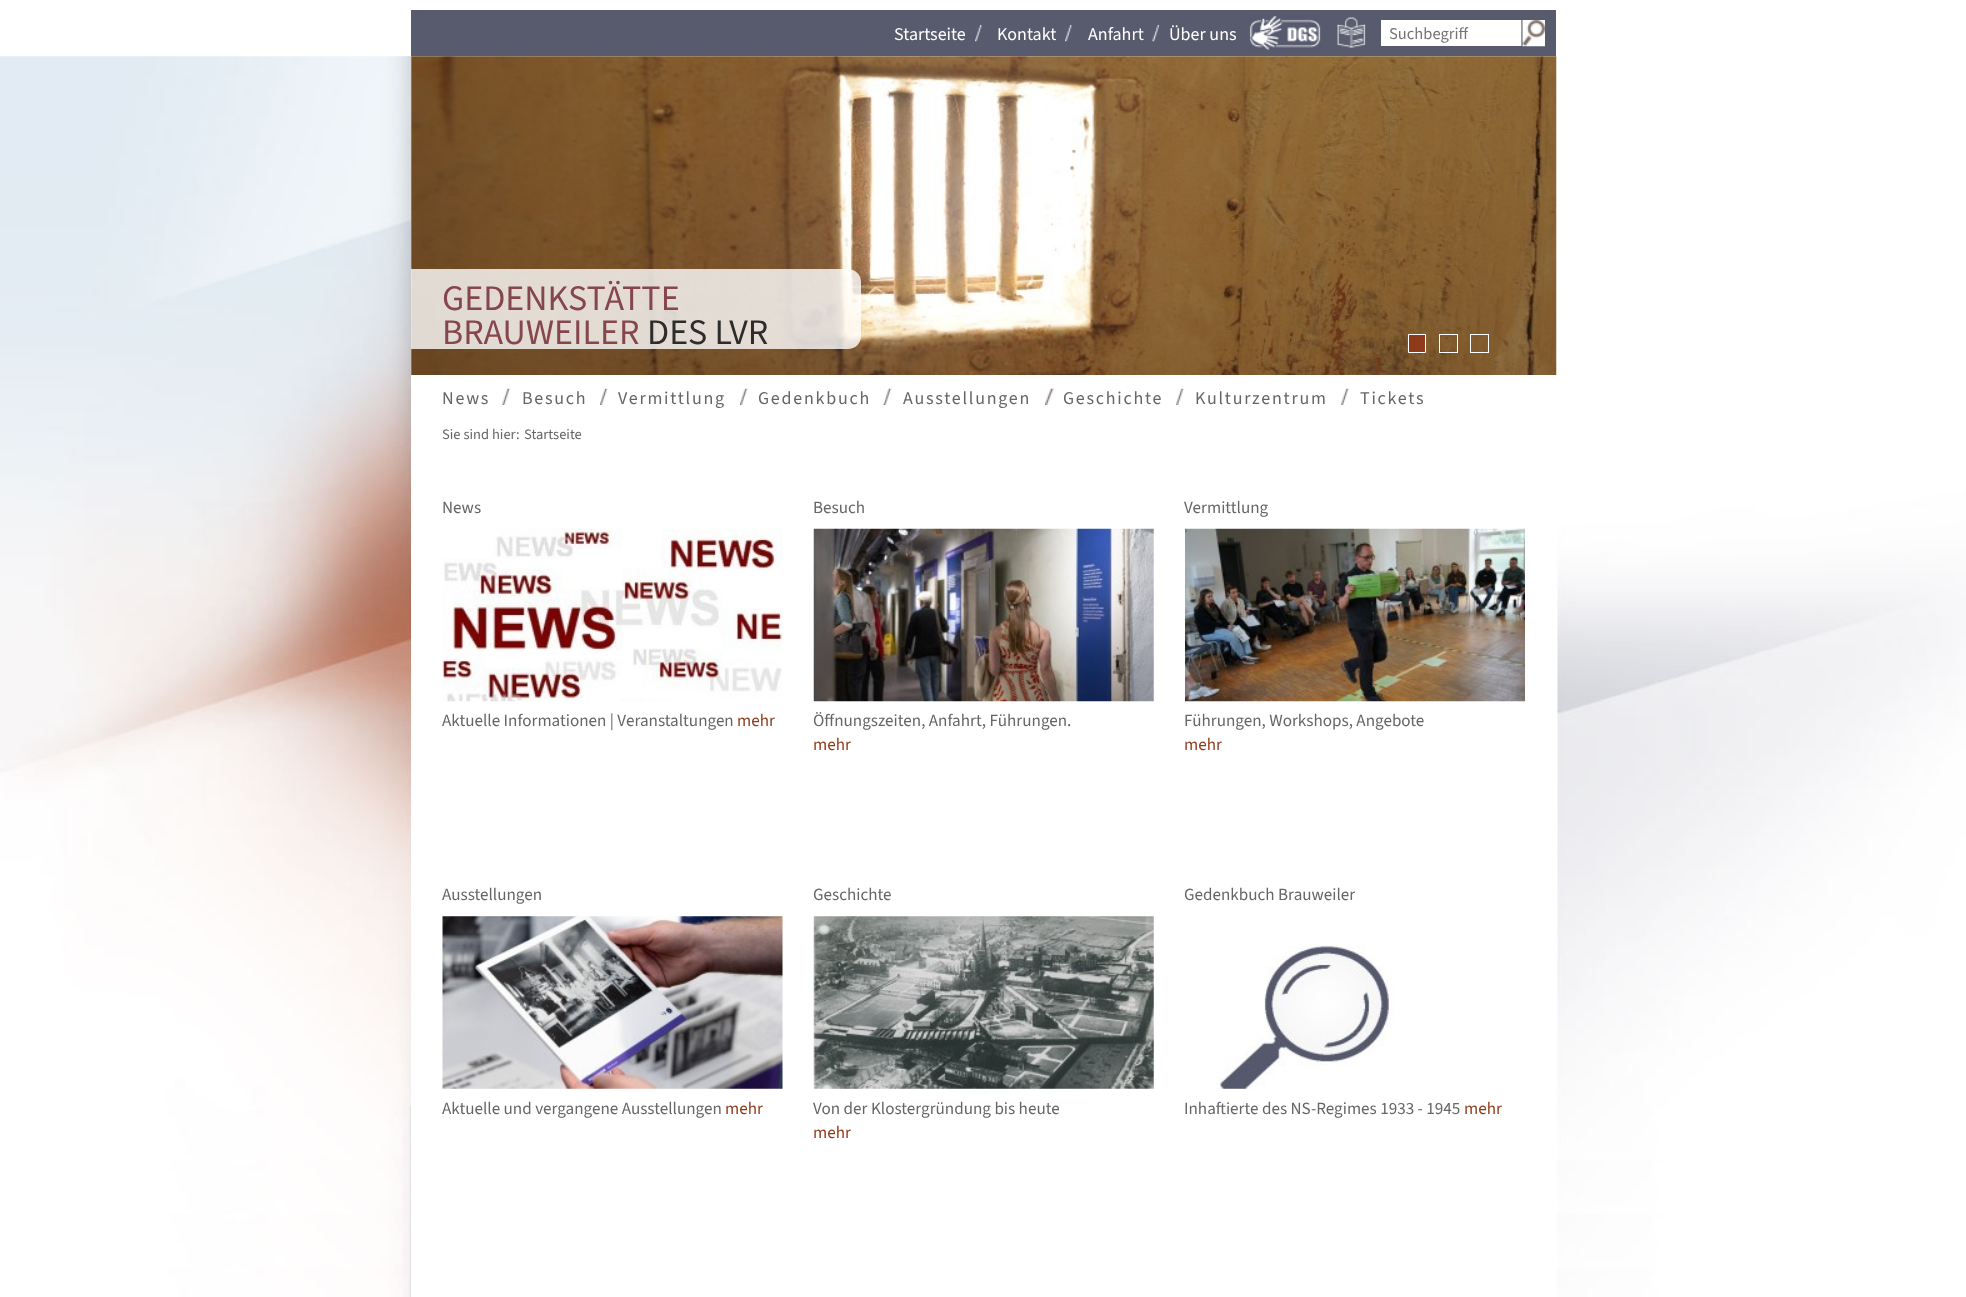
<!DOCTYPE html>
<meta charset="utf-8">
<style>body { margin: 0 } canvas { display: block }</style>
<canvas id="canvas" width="1966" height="1297"></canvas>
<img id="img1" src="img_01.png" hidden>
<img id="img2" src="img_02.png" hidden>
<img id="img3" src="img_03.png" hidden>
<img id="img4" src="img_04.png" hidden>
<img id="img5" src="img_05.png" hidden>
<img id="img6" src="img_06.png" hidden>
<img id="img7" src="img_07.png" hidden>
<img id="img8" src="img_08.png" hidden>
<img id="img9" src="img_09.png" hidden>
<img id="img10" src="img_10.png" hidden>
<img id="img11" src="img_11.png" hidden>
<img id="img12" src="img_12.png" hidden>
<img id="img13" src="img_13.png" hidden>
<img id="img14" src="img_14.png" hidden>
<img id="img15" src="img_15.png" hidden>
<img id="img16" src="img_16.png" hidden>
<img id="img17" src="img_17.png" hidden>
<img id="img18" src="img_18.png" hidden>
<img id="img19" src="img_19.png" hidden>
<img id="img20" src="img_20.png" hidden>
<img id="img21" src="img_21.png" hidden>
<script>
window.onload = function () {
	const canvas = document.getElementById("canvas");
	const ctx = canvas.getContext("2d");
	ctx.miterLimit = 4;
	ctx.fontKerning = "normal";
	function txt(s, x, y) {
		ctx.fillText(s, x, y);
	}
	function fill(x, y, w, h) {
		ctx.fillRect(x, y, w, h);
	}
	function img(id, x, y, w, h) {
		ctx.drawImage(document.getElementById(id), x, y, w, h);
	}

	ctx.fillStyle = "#FFFFFF";
	fill(0, 0, 1966, 1297);
	img("img1", 0, 56, 1966, 1241);
	ctx.fillStyle = "#585A6E";
	fill(411, 10, 1145, 46);
	img("img2", 975, 25, 8, 17);
	img("img3", 1065, 25, 8, 17);
	img("img4", 1152, 25, 8, 17);
	img("img5", 1249, 15, 72, 36);
	img("img6", 1337, 17, 29, 31);
	ctx.fillStyle = "#FFFFFF";
	fill(1381, 20, 140, 26);
	ctx.fillStyle = "#999999";
	fill(1521, 20, 1, 26);
	img("img7", 1522, 20, 23, 27);
	img("img8", 0, 56, 1966, 1051);
	ctx.fillStyle = "#FFFFFF";
	fill(411, 375, 1145, 922);
	ctx.fillStyle = "#F5F5F5";
	fill(411, 56, 1145, 319);
	img("img9", 411, 56, 1146, 319);
	ctx.fillStyle = "rgba(255, 255, 255, 0.8)";
	ctx.beginPath();
	ctx.roundRect(411, 269, 450, 80, [0, 13, 13, 0]);
	ctx.fill();
	ctx.fillStyle = "#8F3B1B";
	ctx.beginPath();
	ctx.rect(1408.5, 334.5, 17, 18);
	ctx.fill();
	ctx.strokeStyle = "#FFFFFF";
	ctx.stroke();
	ctx.strokeRect(1439.5, 334.5, 18, 18);
	ctx.strokeRect(1470.5, 334.5, 18, 18);
	img("img10", 502, 388, 8, 17);
	img("img11", 600, 388, 8, 17);
	img("img12", 740, 388, 8, 17);
	img("img13", 883, 388, 9, 17);
	img("img14", 1045, 388, 9, 17);
	img("img15", 1176, 388, 8, 17);
	img("img15", 1341, 388, 8, 17);
	img("img16", 442, 528, 341, 174);
	img("img17", 813, 528, 341, 174);
	img("img18", 1185, 528, 340, 174);
	img("img19", 442, 916, 341, 173);
	img("img20", 813, 916, 341, 173);
	img("img21", 1216, 943, 179, 146);
	ctx.font = "18px 'Source Sans 3'";
	ctx.fillStyle = "#FFFFFF";
	txt("Startseite", 894, 40);
	txt("Kontakt", 997, 40);
	txt("Anfahrt", 1088, 40);
	txt("Über uns", 1169, 40);
	ctx.font = "16.5px 'Source Sans 3'";
	ctx.fillStyle = "#757575";
	txt("Suchbegriff", 1389, 39);
	ctx.font = "36px 'Source Sans 3'";
	ctx.fillStyle = "#86464E";
	txt("GEDENKSTÄTTE", 442, 310);
	txt("BRAUWEILER", 442, 344);
	ctx.fillStyle = "#2D2C2A";
	txt("DES LVR", 647, 344);
	ctx.letterSpacing = "1.75px";
	ctx.font = "18px 'Source Sans 3'";
	ctx.fillStyle = "#666666";
	txt("News", 442, 404);
	txt("Besuch", 522, 404);
	txt("Vermittlung", 618, 404);
	txt("Gedenkbuch", 758, 404);
	txt("Ausstellungen", 903, 404);
	txt("Geschichte", 1063, 404);
	txt("Kulturzentrum", 1195, 404);
	txt("Tickets", 1360, 404);
	ctx.letterSpacing = "0px";
	ctx.font = "14.5px 'Source Sans 3'";
	txt("Sie sind hier:", 442, 439);
	txt("Startseite", 524, 439);
	ctx.font = "17.1px 'Source Sans 3'";
	txt("News", 442, 513);
	txt("Aktuelle Informationen | Veranstaltungen", 442, 726);
	ctx.fillStyle = "#8F3B1B";
	txt("mehr", 737, 726);
	ctx.fillStyle = "#666666";
	txt("Besuch", 813, 513);
	txt("Öffnungszeiten, Anfahrt, Führungen.", 813, 726);
	ctx.fillStyle = "#8F3B1B";
	txt("mehr", 813, 750);
	ctx.fillStyle = "#666666";
	txt("Vermittlung", 1184, 513);
	txt("Führungen, Workshops, Angebote", 1184, 726);
	ctx.fillStyle = "#8F3B1B";
	txt("mehr", 1184, 750);
	ctx.fillStyle = "#666666";
	txt("Ausstellungen", 442, 900);
	txt("Aktuelle und vergangene Ausstellungen", 442, 1114);
	ctx.fillStyle = "#8F3B1B";
	txt("mehr", 725, 1114);
	ctx.fillStyle = "#666666";
	txt("Geschichte", 813, 900);
	txt("Von der Klostergründung bis heute", 813, 1114);
	ctx.fillStyle = "#8F3B1B";
	txt("mehr", 813, 1138);
	ctx.fillStyle = "#666666";
	txt("Gedenkbuch Brauweiler", 1184, 900);
	txt("Inhaftierte des NS-Regimes 1933 - 1945", 1184, 1114);
	ctx.fillStyle = "#8F3B1B";
	txt("mehr", 1464, 1114);
};
</script>
